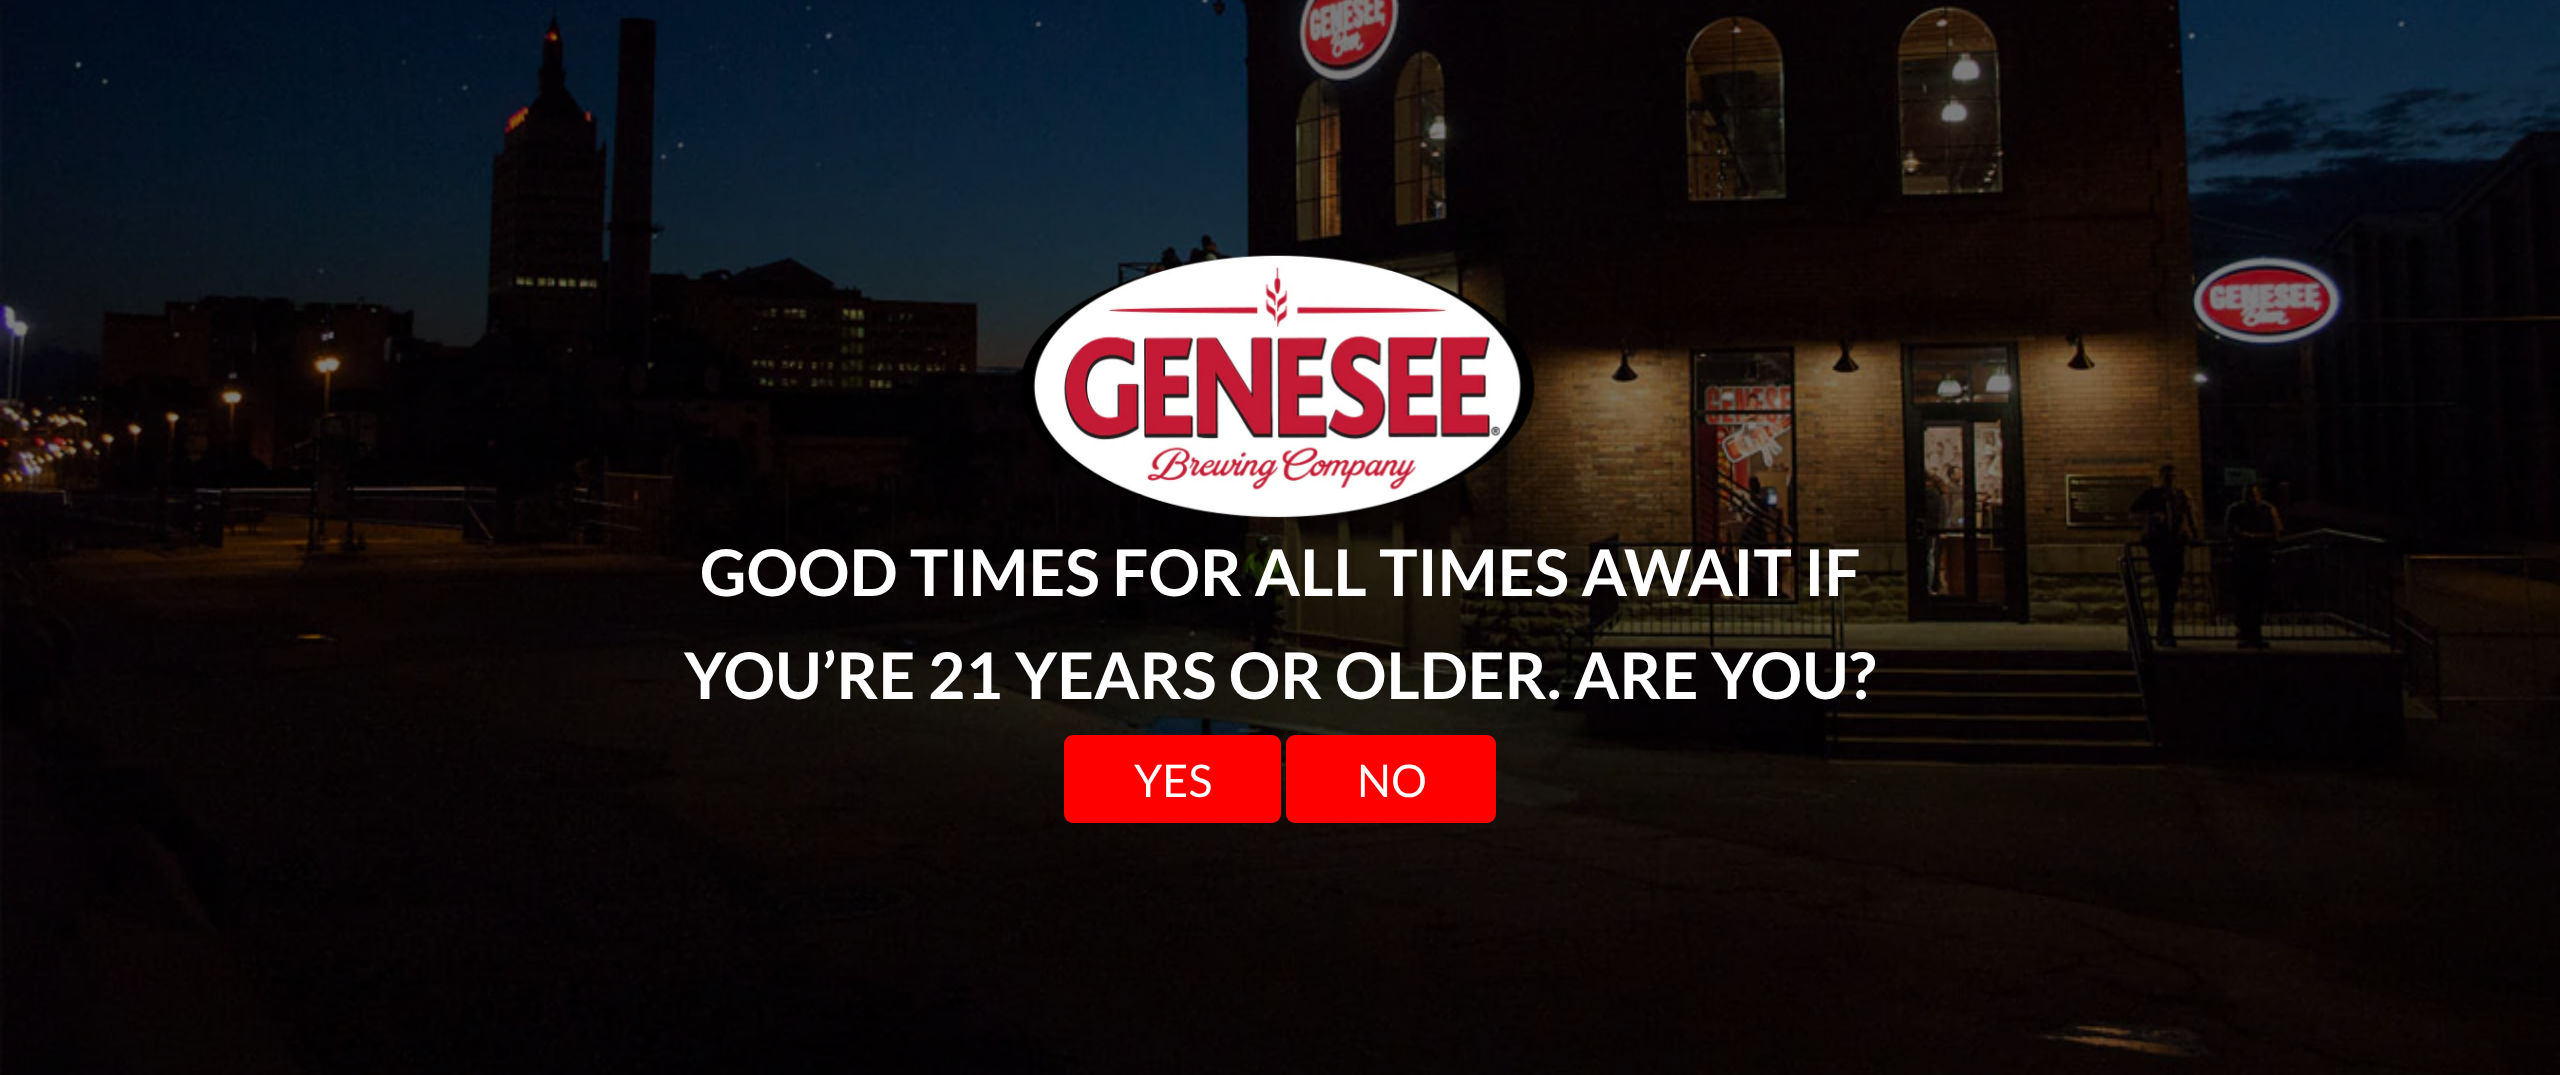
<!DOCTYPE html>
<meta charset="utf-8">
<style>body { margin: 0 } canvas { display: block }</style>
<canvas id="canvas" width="2560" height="1075"></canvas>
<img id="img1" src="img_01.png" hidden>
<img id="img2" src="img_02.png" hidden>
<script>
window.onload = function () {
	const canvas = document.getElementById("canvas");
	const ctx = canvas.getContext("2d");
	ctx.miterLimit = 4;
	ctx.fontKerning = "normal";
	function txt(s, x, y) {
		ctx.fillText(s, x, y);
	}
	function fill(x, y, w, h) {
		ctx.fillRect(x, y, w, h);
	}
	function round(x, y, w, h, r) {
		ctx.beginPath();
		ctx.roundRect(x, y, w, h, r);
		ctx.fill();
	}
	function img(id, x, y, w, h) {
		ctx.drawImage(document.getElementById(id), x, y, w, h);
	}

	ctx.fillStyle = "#000000";
	fill(0, 0, 2560, 1075);
	img("img1", 0, 0, 2560, 1075);
	img("img2", 1021, 255, 514, 263);
	ctx.fillStyle = "#FF0000";
	round(1064, 735, 217, 88, 9);
	round(1286, 735, 210, 88, 9);
	ctx.font = "bold 64.4px Lato";
	ctx.fillStyle = "#FFFFFF";
	txt("GOOD TIMES FOR ALL TIMES AWAIT IF", 700, 596);
	txt("YOU’RE 21 YEARS OR OLDER. ARE YOU?", 684, 699);
	ctx.font = "45px Lato";
	txt("YES", 1134, 797);
	txt("NO", 1357, 797);
};
</script>
